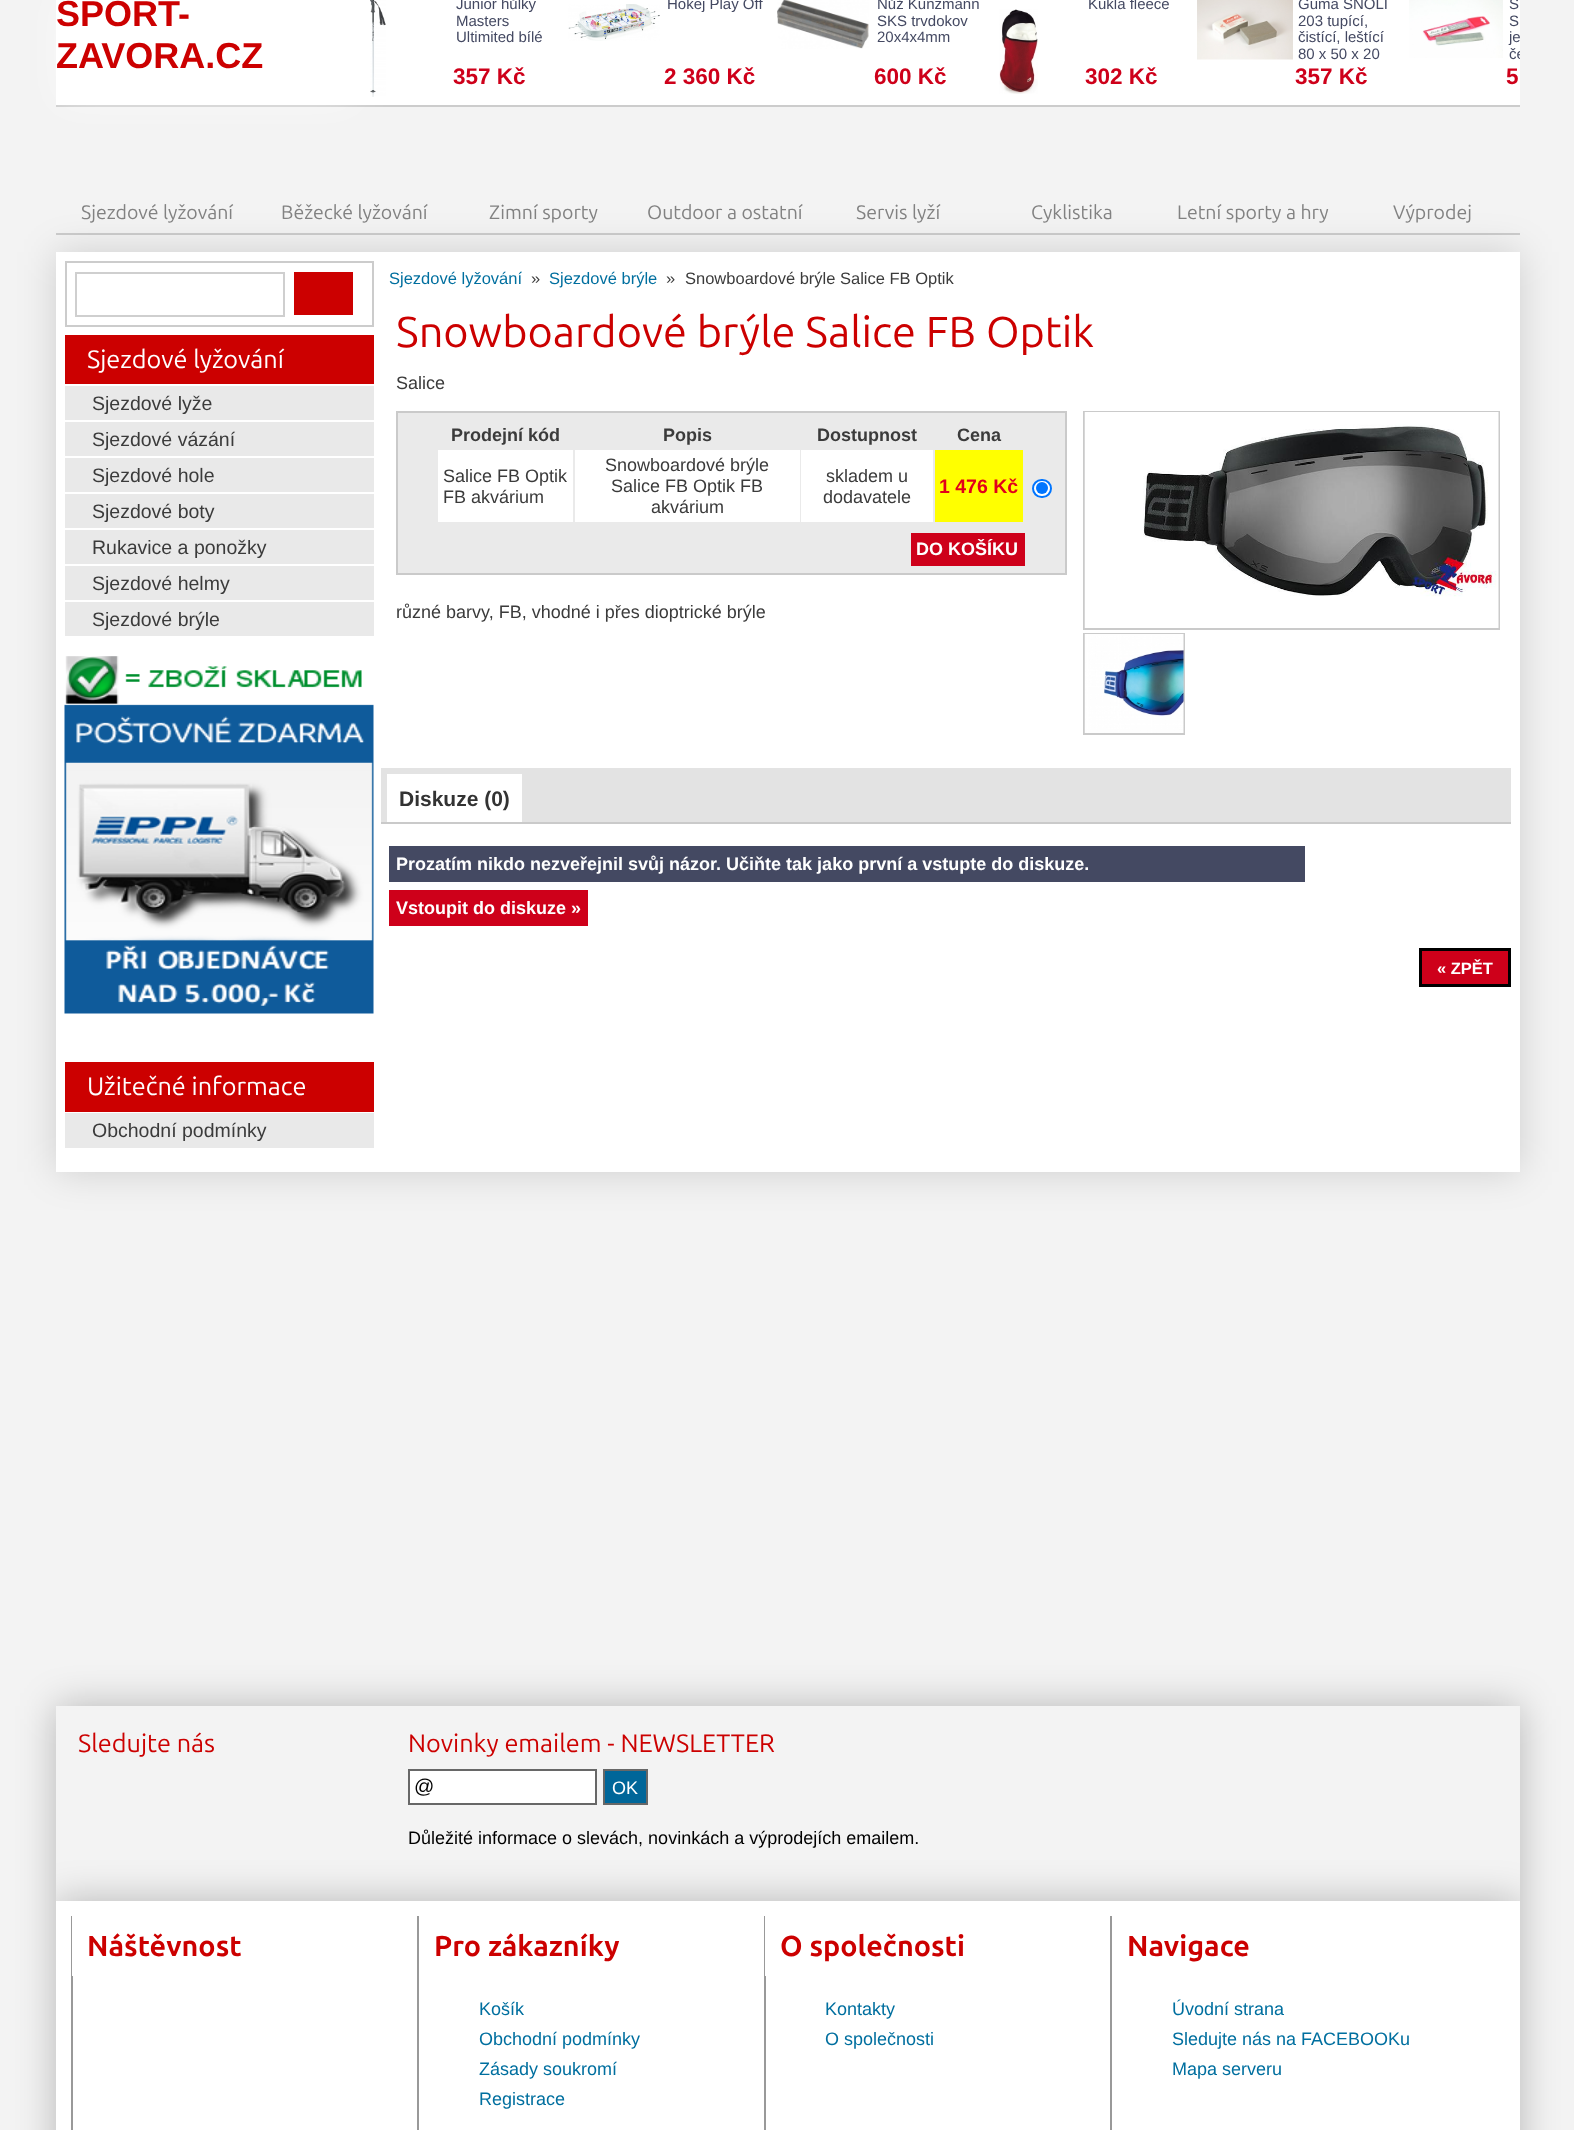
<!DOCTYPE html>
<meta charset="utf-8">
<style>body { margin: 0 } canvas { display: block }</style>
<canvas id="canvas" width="1574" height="2130"></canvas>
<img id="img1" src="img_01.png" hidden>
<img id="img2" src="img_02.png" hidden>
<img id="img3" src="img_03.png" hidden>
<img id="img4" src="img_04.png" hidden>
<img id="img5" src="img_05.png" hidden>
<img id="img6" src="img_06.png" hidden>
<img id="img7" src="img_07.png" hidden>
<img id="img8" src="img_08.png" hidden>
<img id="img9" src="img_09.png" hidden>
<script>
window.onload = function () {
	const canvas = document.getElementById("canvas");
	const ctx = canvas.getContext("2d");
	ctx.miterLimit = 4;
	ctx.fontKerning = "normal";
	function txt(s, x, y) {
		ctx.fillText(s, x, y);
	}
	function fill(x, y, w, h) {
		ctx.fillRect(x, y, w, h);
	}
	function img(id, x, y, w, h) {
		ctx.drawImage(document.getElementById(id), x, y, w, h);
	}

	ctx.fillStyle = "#F3F3F3";
	fill(0, 0, 1574, 2130);
	ctx.fillStyle = "#FFFFFF";
	fill(56, 0, 1464, 105);
	img("img1", 370, 0, 16, 97);
	ctx.fillStyle = "#CCCCCC";
	fill(56, 105, 1464, 2);
	ctx.save();
	ctx.beginPath();
	ctx.moveTo(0, 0);
	ctx.lineTo(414, 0);
	ctx.lineTo(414, 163);
	ctx.lineTo(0, 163);
	ctx.closePath();
	ctx.moveTo(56, -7);
	ctx.lineTo(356, -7);
	ctx.lineTo(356, 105);
	ctx.lineTo(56, 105);
	ctx.closePath();
	ctx.clip("evenodd");
	ctx.fillStyle = "rgba(255, 255, 255, 0.5)";
	ctx.filter = "blur(19px)";
	ctx.beginPath();
	ctx.rect(56, -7, 300, 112);
	ctx.fill();
	ctx.filter = "none";
	ctx.restore();
	img("img2", 568, 4, 92, 37);
	img("img3", 777, 0, 92, 49);
	img("img4", 999, 9, 39, 85);
	img("img5", 1197, 0, 96, 60);
	img("img6", 1409, 0, 94, 58);
	fill(56, 233, 1464, 2);
	ctx.fillStyle = "rgba(0, 0, 0, 0.15)";
	ctx.filter = "blur(19px)";
	ctx.beginPath();
	ctx.rect(56, 252, 1464, 920);
	ctx.fill();
	ctx.filter = "none";
	ctx.fillStyle = "#FFFFFF";
	fill(56, 252, 1464, 920);
	ctx.strokeStyle = "#CCCCCC";
	ctx.lineWidth = 2;
	ctx.strokeRect(66, 262, 307, 64);
	ctx.strokeStyle = "#CFCFCF";
	ctx.strokeRect(76, 273, 208, 43);
	ctx.fillStyle = "#CC0000";
	fill(294, 272, 59, 43);
	fill(65, 335, 309, 49);
	ctx.fillStyle = "#E9E9E9";
	fill(65, 386, 309, 34);
	fill(65, 422, 309, 34);
	fill(65, 458, 309, 34);
	fill(65, 494, 309, 34);
	fill(65, 530, 309, 34);
	fill(65, 566, 309, 34);
	fill(65, 602, 309, 34);
	img("img7", 64, 656, 310, 358);
	ctx.fillStyle = "#CC0000";
	fill(65, 1062, 309, 50);
	ctx.fillStyle = "#E9E9E9";
	fill(65, 1113, 309, 35);
	ctx.fillStyle = "#EAEAEA";
	ctx.beginPath();
	ctx.rect(397, 412, 669, 162);
	ctx.fill();
	ctx.strokeStyle = "#CACACA";
	ctx.stroke();
	ctx.fillStyle = "#FFFFFF";
	fill(438, 450, 135, 72);
	fill(575, 450, 225, 72);
	fill(801, 450, 132, 72);
	ctx.fillStyle = "#FFFF00";
	fill(935, 450, 88, 72);
	ctx.fillStyle = "#FFFFFF";
	ctx.beginPath();
	ctx.roundRect(1033, 480, 18, 17, 8.5);
	ctx.fill();
	ctx.strokeStyle = "#0075FF";
	ctx.stroke();
	ctx.fillStyle = "#0075FF";
	ctx.beginPath();
	ctx.arc(1042, 488, 6, 0, Math.PI * 2);
	ctx.fill();
	ctx.fillStyle = "#CE001A";
	fill(911, 533, 114, 33);
	ctx.strokeStyle = "#CACACA";
	ctx.strokeRect(1084, 412, 415, 217);
	img("img8", 1084, 412, 415, 216);
	ctx.strokeRect(1084, 634, 100, 100);
	img("img9", 1084, 634, 100, 99);
	ctx.fillStyle = "#E3E3E3";
	fill(381, 768, 1130, 54);
	ctx.fillStyle = "#FFFFFF";
	fill(387, 774, 135, 48);
	ctx.fillStyle = "#CACACA";
	fill(381, 822, 1130, 2);
	ctx.fillStyle = "#444962";
	fill(389, 846, 916, 36);
	ctx.fillStyle = "#CE001A";
	fill(389, 890, 199, 36);
	ctx.beginPath();
	ctx.rect(1420.5, 949.5, 89, 36);
	ctx.fill();
	ctx.strokeStyle = "#000000";
	ctx.lineWidth = 3;
	ctx.stroke();
	ctx.fillStyle = "rgba(0, 0, 0, 0.25)";
	ctx.filter = "blur(19px)";
	ctx.beginPath();
	ctx.rect(56, 1706, 1464, 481);
	ctx.fill();
	ctx.filter = "none";
	ctx.fillStyle = "#F3F3F3";
	fill(56, 1706, 1464, 195);
	ctx.fillStyle = "#FFFFFF";
	ctx.beginPath();
	ctx.rect(409, 1770, 187, 34);
	ctx.fill();
	ctx.strokeStyle = "#676767";
	ctx.lineWidth = 2;
	ctx.stroke();
	ctx.fillStyle = "#006699";
	ctx.beginPath();
	ctx.rect(604, 1770, 43, 34);
	ctx.fill();
	ctx.stroke();
	ctx.save();
	ctx.beginPath();
	ctx.rect(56, 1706, 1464, 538);
	ctx.clip();
	ctx.fillStyle = "rgba(0, 0, 0, 0.25)";
	ctx.filter = "blur(19px)";
	ctx.beginPath();
	ctx.rect(56, 1901, 1464, 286);
	ctx.fill();
	ctx.filter = "none";
	ctx.restore();
	ctx.fillStyle = "#FFFFFF";
	fill(56, 1901, 1464, 229);
	ctx.fillStyle = "#999999";
	fill(71, 1916, 2, 214);
	ctx.fillStyle = "#FFFFFF";
	fill(72, 1916, 1, 60);
	ctx.fillStyle = "#999999";
	fill(417, 1916, 2, 214);
	fill(764, 1916, 2, 214);
	ctx.fillStyle = "#FFFFFF";
	fill(765, 1916, 1, 60);
	ctx.fillStyle = "#999999";
	fill(1110, 1916, 2, 214);
	ctx.font = "bold 36px Liberation Sans";
	ctx.fillStyle = "#CC0000";
	txt("SPORT-", 56, 26);
	txt("ZAVORA.CZ", 56, 68);
	ctx.font = "15px Liberation Sans";
	ctx.fillStyle = "#444962";
	txt("Junior hůlky", 456, 9);
	txt("Masters", 456, 26);
	txt("Ultimited bílé", 456, 42);
	ctx.font = "bold 22.5px Liberation Sans";
	ctx.fillStyle = "#CE001A";
	txt("357 Kč", 453, 84);
	ctx.font = "15px Liberation Sans";
	ctx.fillStyle = "#444962";
	txt("Hokej Play Off", 667, 9);
	ctx.font = "bold 22.5px Liberation Sans";
	ctx.fillStyle = "#CE001A";
	txt("2 360 Kč", 664, 84);
	ctx.font = "15px Liberation Sans";
	ctx.fillStyle = "#444962";
	txt("Nůž Kunzmann", 877, 9);
	txt("SKS trvdokov", 877, 26);
	txt("20x4x4mm", 877, 42);
	ctx.font = "bold 22.5px Liberation Sans";
	ctx.fillStyle = "#CE001A";
	txt("600 Kč", 874, 84);
	ctx.font = "15px Liberation Sans";
	ctx.fillStyle = "#444962";
	txt("Kukla fleece", 1088, 9);
	ctx.font = "bold 22.5px Liberation Sans";
	ctx.fillStyle = "#CE001A";
	txt("302 Kč", 1085, 84);
	ctx.font = "15px Liberation Sans";
	ctx.fillStyle = "#444962";
	txt("Guma SNOLI", 1298, 9);
	txt("203 tupící,", 1298, 26);
	txt("čistící, leštící", 1298, 42);
	txt("80 x 50 x 20", 1298, 59);
	ctx.font = "bold 22.5px Liberation Sans";
	ctx.fillStyle = "#CE001A";
	txt("357 Kč", 1295, 84);
	ctx.font = "15px Liberation Sans";
	ctx.fillStyle = "#444962";
	txt("S", 1509, 9);
	txt("S", 1509, 26);
	txt("je", 1509, 42);
	ctx.save();
	ctx.beginPath();
	ctx.rect(1506, 0, 14, 63);
	ctx.clip();
	txt("če", 1509, 59);
	ctx.restore();
	ctx.font = "bold 22.5px Liberation Sans";
	ctx.fillStyle = "#CE001A";
	txt("5", 1506, 84);
	ctx.font = "19.5px Ubuntu";
	ctx.fillStyle = "#828282";
	txt("Sjezdové lyžování", 81, 219);
	txt("Běžecké lyžování", 281, 219);
	txt("Zimní sporty", 489, 219);
	txt("Outdoor a ostatní", 647, 219);
	txt("Servis lyží", 856, 219);
	txt("Cyklistika", 1031, 219);
	txt("Letní sporty a hry", 1177, 219);
	txt("Výprodej", 1393, 219);
	ctx.font = "25.25px Ubuntu";
	ctx.fillStyle = "#FFFFFF";
	txt("Sjezdové lyžování", 87, 368);
	ctx.font = "19.5px Liberation Sans";
	ctx.fillStyle = "#3B3B3B";
	txt("Sjezdové lyže", 92, 410);
	txt("Sjezdové vázání", 92, 446);
	txt("Sjezdové hole", 92, 482);
	txt("Sjezdové boty", 92, 518);
	txt("Rukavice a ponožky", 92, 554);
	txt("Sjezdové helmy", 92, 590);
	txt("Sjezdové brýle", 92, 626);
	ctx.font = "25.25px Ubuntu";
	ctx.fillStyle = "#FFFFFF";
	txt("Užitečné informace", 87, 1095);
	ctx.font = "19.5px Liberation Sans";
	ctx.fillStyle = "#3B3B3B";
	txt("Obchodní podmínky", 92, 1137);
	ctx.font = "16.5px Liberation Sans";
	ctx.fillStyle = "#006F9F";
	txt("Sjezdové lyžování", 389, 284);
	ctx.fillStyle = "#3B3B3B";
	txt("»", 531, 284);
	ctx.fillStyle = "#006F9F";
	txt("Sjezdové brýle", 549, 284);
	ctx.fillStyle = "#3B3B3B";
	txt("»", 666, 284);
	txt("Snowboardové brýle Salice FB Optik", 685, 284);
	ctx.font = "43.25px Ubuntu";
	ctx.fillStyle = "#CC0000";
	txt("Snowboardové brýle Salice FB Optik", 396, 347);
	ctx.font = "18px Liberation Sans";
	ctx.fillStyle = "#3B3B3B";
	txt("Salice", 396, 389);
	ctx.font = "bold 18px Liberation Sans";
	txt("Prodejní kód", 451, 441);
	txt("Popis", 663, 441);
	txt("Dostupnost", 817, 441);
	txt("Cena", 957, 441);
	ctx.font = "18px Liberation Sans";
	txt("Salice FB Optik", 443, 482);
	txt("FB akvárium", 443, 503);
	txt("Snowboardové brýle", 605, 471);
	txt("Salice FB Optik FB", 611, 492);
	txt("akvárium", 651, 513);
	txt("skladem u", 826, 482);
	txt("dodavatele", 823, 503);
	ctx.font = "bold 19.5px Liberation Sans";
	ctx.fillStyle = "#E2001A";
	txt("1 476 Kč", 939, 493);
	ctx.font = "bold 18px Liberation Sans";
	ctx.fillStyle = "#FFFFFF";
	txt("DO KOŠÍKU", 916, 555);
	ctx.font = "18px Liberation Sans";
	ctx.fillStyle = "#3B3B3B";
	txt("různé barvy, FB, vhodné i přes dioptrické brýle", 396, 618);
	ctx.font = "bold 21px Liberation Sans";
	ctx.fillStyle = "#333333";
	txt("Diskuze (0)", 399, 806);
	ctx.font = "bold 18px Liberation Sans";
	ctx.fillStyle = "#FFFFFF";
	txt("Prozatím nikdo nezveřejnil svůj názor. Učiňte tak jako první a vstupte do diskuze.", 396, 870);
	txt("Vstoupit do diskuze »", 396, 914);
	ctx.font = "bold 16.5px Liberation Sans";
	txt("« ZPĚT", 1437, 974);
	ctx.font = "25.25px Ubuntu";
	ctx.fillStyle = "#CC0000";
	txt("Sledujte nás", 78, 1752);
	txt("Novinky emailem - NEWSLETTER", 408, 1752);
	ctx.font = "20px Liberation Sans";
	ctx.fillStyle = "#000000";
	txt("@", 414, 1793);
	ctx.font = "18px Liberation Sans";
	ctx.fillStyle = "#FFFFFF";
	txt("OK", 612, 1794);
	ctx.fillStyle = "#000000";
	txt("Důležité informace o slevách, novinkách a výprodejích emailem.", 408, 1844);
	ctx.font = "bold 28.75px Ubuntu";
	ctx.fillStyle = "#CC0000";
	txt("Náštěvnost", 87, 1956);
	txt("Pro zákazníky", 434, 1956);
	ctx.font = "18px Liberation Sans";
	ctx.fillStyle = "#006F9F";
	txt("Košík", 479, 2015);
	txt("Obchodní podmínky", 479, 2045);
	txt("Zásady soukromí", 479, 2075);
	txt("Registrace", 479, 2105);
	ctx.font = "bold 28.75px Ubuntu";
	ctx.fillStyle = "#CC0000";
	txt("O společnosti", 780, 1956);
	ctx.font = "18px Liberation Sans";
	ctx.fillStyle = "#006F9F";
	txt("Kontakty", 825, 2015);
	txt("O společnosti", 825, 2045);
	ctx.font = "bold 28.75px Ubuntu";
	ctx.fillStyle = "#CC0000";
	txt("Navigace", 1127, 1956);
	ctx.font = "18px Liberation Sans";
	ctx.fillStyle = "#006F9F";
	txt("Úvodní strana", 1172, 2015);
	txt("Sledujte nás na FACEBOOKu", 1172, 2045);
	txt("Mapa serveru", 1172, 2075);
};
</script>
